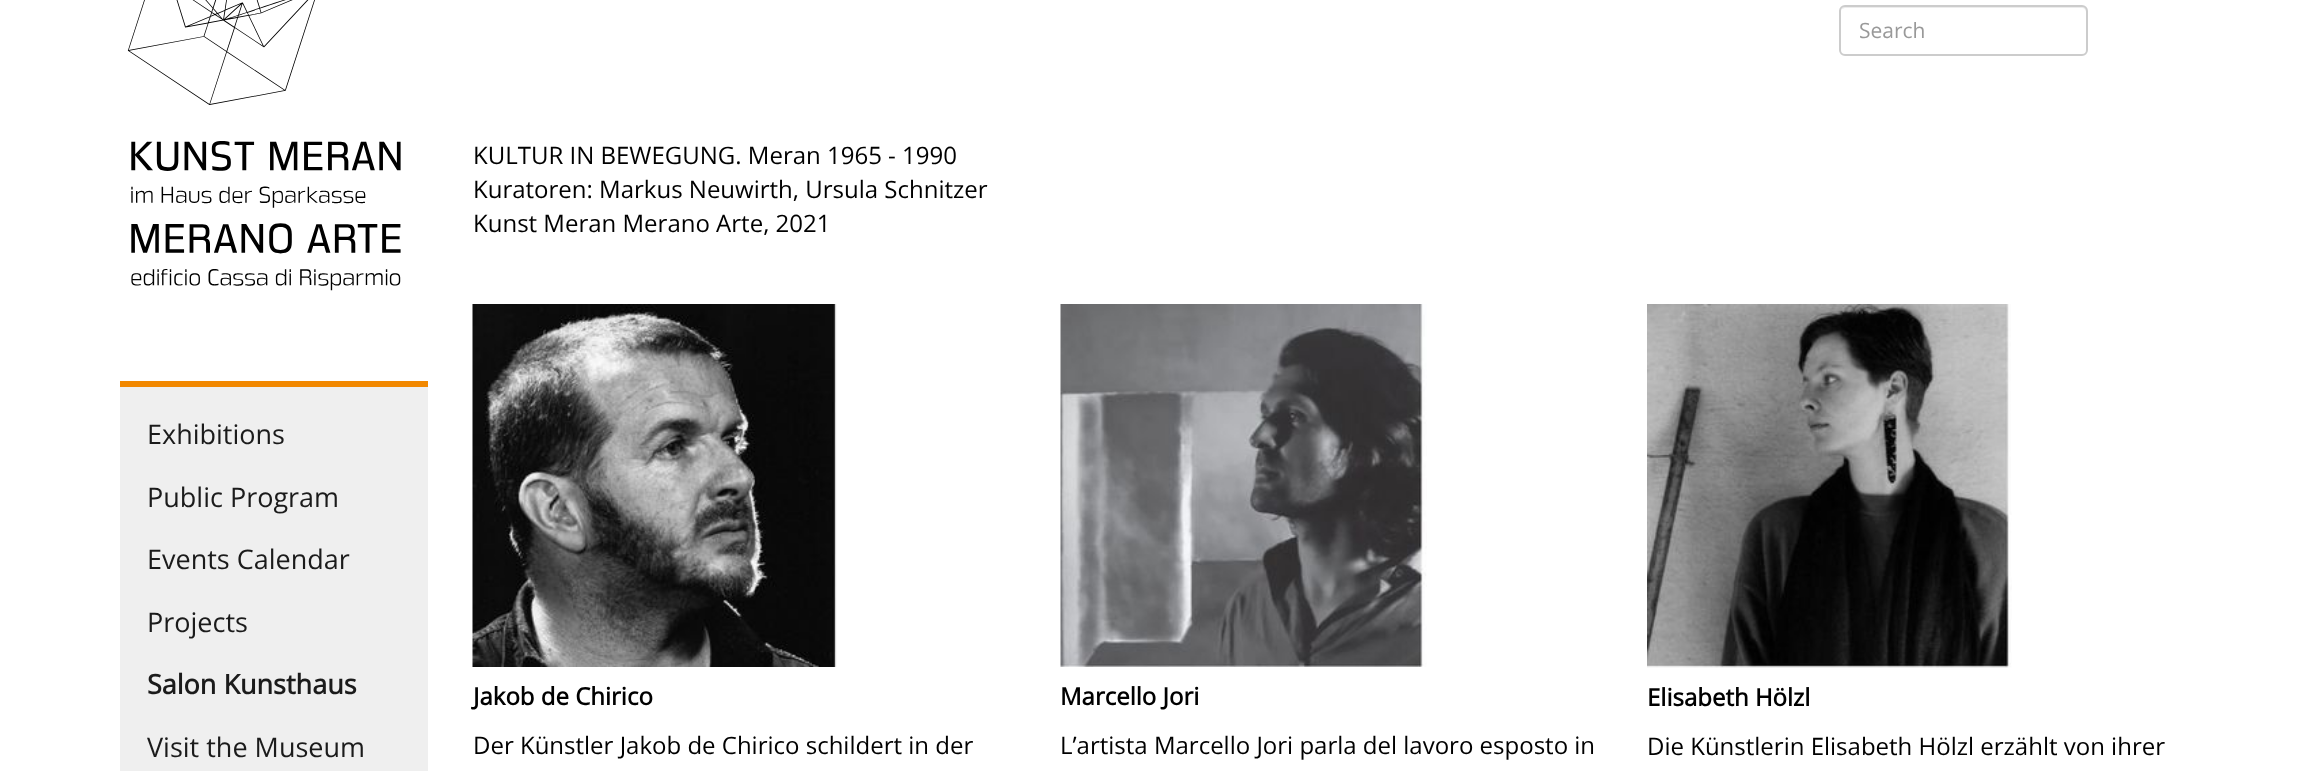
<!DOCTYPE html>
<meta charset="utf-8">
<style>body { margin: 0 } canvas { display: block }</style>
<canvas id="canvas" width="2310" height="771"></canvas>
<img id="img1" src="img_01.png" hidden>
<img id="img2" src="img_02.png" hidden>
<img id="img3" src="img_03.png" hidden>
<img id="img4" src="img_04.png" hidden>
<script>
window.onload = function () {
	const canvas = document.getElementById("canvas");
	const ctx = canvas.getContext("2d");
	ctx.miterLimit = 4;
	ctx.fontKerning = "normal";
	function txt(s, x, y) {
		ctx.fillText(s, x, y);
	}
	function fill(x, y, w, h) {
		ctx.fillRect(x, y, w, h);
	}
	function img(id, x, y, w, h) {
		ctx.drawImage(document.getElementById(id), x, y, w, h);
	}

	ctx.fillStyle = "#FFFFFF";
	fill(0, 0, 2310, 771);
	ctx.fillStyle = "#ECECEC";
	ctx.beginPath();
	ctx.moveTo(1845, 8);
	ctx.lineTo(2082, 8);
	ctx.bezierCurveTo(2084, 8, 2086, 10, 2086, 12);
	ctx.lineTo(2086, 52);
	ctx.bezierCurveTo(2087, 51, 2087, 50, 2087, 49);
	ctx.lineTo(2087, 11);
	ctx.bezierCurveTo(2087, 8, 2085, 6, 2082, 6);
	ctx.lineTo(1846, 6);
	ctx.bezierCurveTo(1844, 6, 1842, 8, 1841, 10);
	ctx.bezierCurveTo(1842, 9, 1844, 8, 1845, 8);
	ctx.closePath();
	ctx.fill();
	ctx.beginPath();
	ctx.roundRect(1840, 6, 247, 49, 5);
	ctx.strokeStyle = "#CCCCCC";
	ctx.lineWidth = 2;
	ctx.stroke();
	img("img1", 127, 0, 274, 291);
	ctx.fillStyle = "#EFEFEF";
	fill(120, 387, 308, 384);
	ctx.fillStyle = "#F28800";
	fill(120, 381, 308, 6);
	img("img2", 472, 304, 365, 363);
	img("img3", 1060, 304, 367, 363);
	img("img4", 1647, 304, 365, 364);
	ctx.font = "21px Open Sans";
	ctx.fillStyle = "#999999";
	txt("Search", 1859, 38);
	ctx.font = "27px Open Sans";
	ctx.fillStyle = "#1B1B1B";
	txt("Exhibitions", 147, 444);
	txt("Public Program", 147, 507);
	txt("Events Calendar", 147, 569);
	txt("Projects", 147, 632);
	ctx.font = "bold 27px Open Sans";
	txt("Salon Kunsthaus", 147, 694);
	ctx.font = "27px Open Sans";
	txt("Visit the Museum", 147, 757);
	ctx.font = "24px Open Sans";
	ctx.fillStyle = "#000000";
	txt("KULTUR IN BEWEGUNG. Meran 1965 - 1990", 473, 164);
	txt("Kuratoren: Markus Neuwirth, Ursula Schnitzer", 473, 198);
	txt("Kunst Meran Merano Arte, 2021", 473, 232);
	ctx.font = "bold 24px Open Sans";
	txt("Jakob de Chirico", 473, 705);
	ctx.font = "24px Open Sans";
	txt("Der Künstler Jakob de Chirico schildert in der", 473, 754);
	ctx.font = "bold 24px Open Sans";
	txt("Marcello Jori", 1060, 705);
	ctx.font = "24px Open Sans";
	txt("L’artista Marcello Jori parla del lavoro esposto in", 1060, 754);
	ctx.font = "bold 24px Open Sans";
	txt("Elisabeth Hölzl", 1647, 706);
	ctx.font = "24px Open Sans";
	txt("Die Künstlerin Elisabeth Hölzl erzählt von ihrer", 1647, 755);
};
</script>
